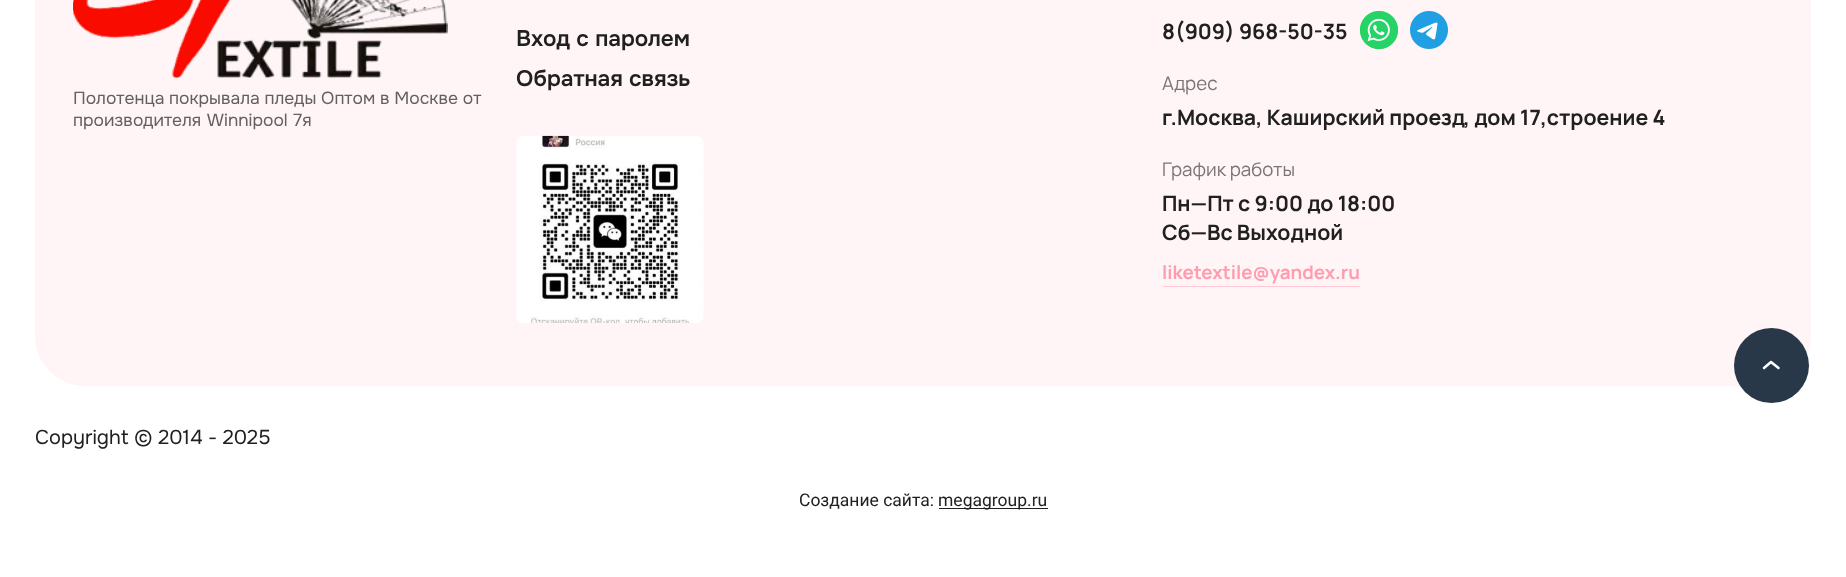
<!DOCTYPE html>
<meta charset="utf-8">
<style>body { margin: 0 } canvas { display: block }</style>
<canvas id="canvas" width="1846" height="577"></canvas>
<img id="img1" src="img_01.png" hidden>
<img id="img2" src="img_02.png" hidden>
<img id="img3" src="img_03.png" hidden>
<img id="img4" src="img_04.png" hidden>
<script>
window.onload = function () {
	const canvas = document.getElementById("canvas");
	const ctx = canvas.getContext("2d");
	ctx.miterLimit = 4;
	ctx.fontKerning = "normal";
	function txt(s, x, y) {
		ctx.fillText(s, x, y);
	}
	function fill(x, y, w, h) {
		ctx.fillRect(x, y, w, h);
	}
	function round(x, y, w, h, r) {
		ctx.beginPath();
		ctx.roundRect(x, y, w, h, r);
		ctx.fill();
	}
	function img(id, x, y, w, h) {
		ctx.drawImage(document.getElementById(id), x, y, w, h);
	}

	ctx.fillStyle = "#FFFFFF";
	fill(0, 0, 1846, 577);
	ctx.fillStyle = "#FFF4F6";
	round(35, -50, 1776, 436, 50);
	img("img1", 73, 0, 375, 78);
	img("img2", 516, 135, 188, 188);
	img("img3", 1360, 11, 38, 38);
	img("img4", 1410, 11, 38, 38);
	ctx.fillStyle = "#FFC8D3";
	fill(1163, 286, 197, 1);
	ctx.fillStyle = "#293849";
	ctx.beginPath();
	ctx.arc(1771.5, 365.5, 37.5, 0, Math.PI * 2);
	ctx.fill();
	ctx.beginPath();
	ctx.moveTo(1778.5, 368);
	ctx.lineTo(1771, 362);
	ctx.lineTo(1764, 368);
	ctx.strokeStyle = "#FFFFFF";
	ctx.lineWidth = 2.5;
	ctx.lineCap = "round";
	ctx.lineJoin = "round";
	ctx.stroke();
	ctx.fillStyle = "#202020";
	fill(939, 508, 109, 1);
	ctx.font = "17.5px Onest";
	ctx.fillStyle = "#636060";
	txt("Полотенца покрывала пледы Оптом в Москве от", 73, 104);
	ctx.wordSpacing = "1px";
	txt("производителя Winnipool 7я", 73, 126);
	ctx.wordSpacing = "0px";
	ctx.font = "600 22.5px Onest";
	ctx.fillStyle = "#202020";
	txt("Вход с паролем", 516, 46);
	txt("Обратная связь", 516, 86);
	ctx.font = "200 21.25px Manrope";
	txt("8(909) 968-50-35", 1162, 39);
	ctx.font = "200 18.75px 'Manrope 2'";
	ctx.fillStyle = "#797576";
	txt("Адрес", 1162, 90);
	ctx.font = "200 21.25px Manrope";
	ctx.fillStyle = "#202020";
	txt("г.Москва, Каширский проезд, дом 17,строение 4", 1162, 125);
	ctx.font = "200 18.75px 'Manrope 2'";
	ctx.fillStyle = "#797576";
	txt("График работы", 1162, 176);
	ctx.font = "200 21.25px Manrope";
	ctx.fillStyle = "#202020";
	txt("Пн—Пт с 9:00 до 18:00", 1162, 211);
	txt("Сб—Вс Выходной", 1162, 240);
	ctx.font = "200 18.75px Manrope";
	ctx.fillStyle = "#FF9CAF";
	txt("liketextile@yandex.ru", 1162, 279);
	ctx.font = "20px Onest";
	ctx.fillStyle = "#202020";
	txt("Copyright © 2014 - 2025", 35, 444);
	ctx.font = "17.5px Roboto";
	txt("Создание сайта:", 799, 506);
	txt("megagroup.ru", 938, 506);
};
</script>
